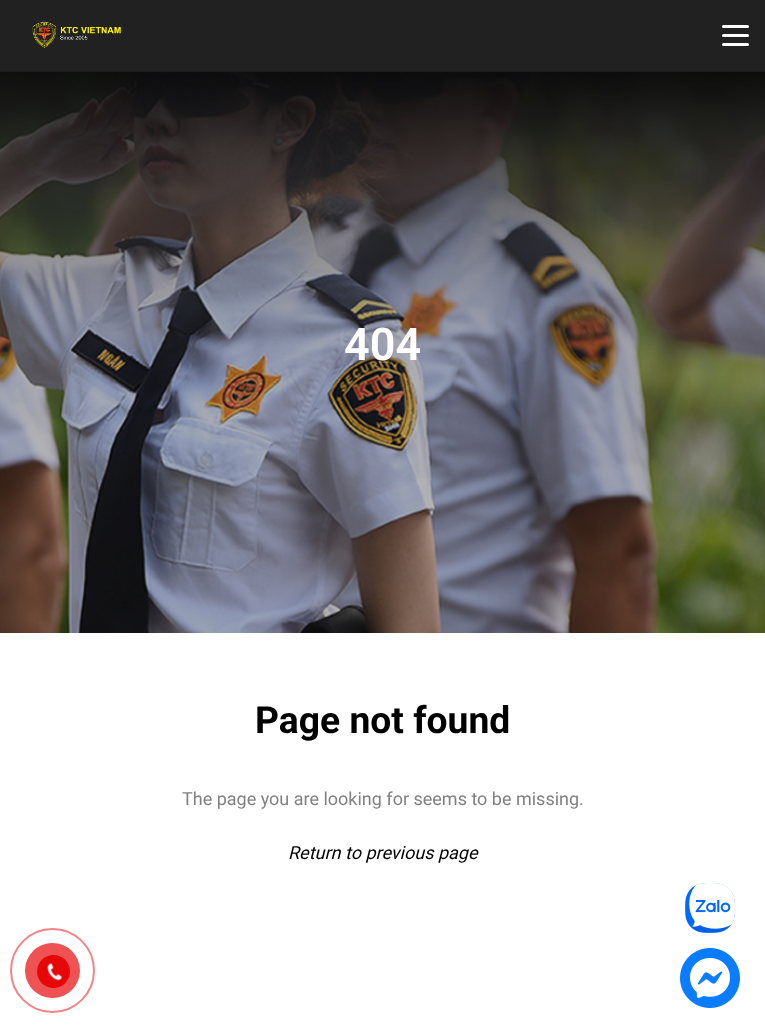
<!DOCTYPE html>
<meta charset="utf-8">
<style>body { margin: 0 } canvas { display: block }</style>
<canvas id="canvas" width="765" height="1028"></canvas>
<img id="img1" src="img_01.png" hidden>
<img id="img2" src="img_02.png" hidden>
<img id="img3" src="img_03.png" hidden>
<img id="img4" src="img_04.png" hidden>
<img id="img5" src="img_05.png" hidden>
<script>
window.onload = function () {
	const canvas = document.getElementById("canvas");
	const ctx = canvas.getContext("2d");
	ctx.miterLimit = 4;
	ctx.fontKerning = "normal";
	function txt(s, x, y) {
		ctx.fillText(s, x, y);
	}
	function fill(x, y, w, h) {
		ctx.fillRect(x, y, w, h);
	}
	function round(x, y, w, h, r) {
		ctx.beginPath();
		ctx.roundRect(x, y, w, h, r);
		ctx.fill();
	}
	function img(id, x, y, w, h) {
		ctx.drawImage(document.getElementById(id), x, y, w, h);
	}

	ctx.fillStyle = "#FFFFFF";
	fill(0, 0, 765, 1028);
	ctx.fillStyle = "#212121";
	fill(0, 0, 765, 71);
	img("img1", 32, 21, 89, 27);
	ctx.fillStyle = "#FFFFFF";
	round(722, 25, 27, 3, 1.5);
	round(722, 34, 27, 3, 1.5);
	round(722, 43, 27, 3, 1.5);
	ctx.fillStyle = "#1E1E1E";
	fill(0, 71, 765, 1);
	img("img2", 0, 72, 765, 561);
	img("img3", 685, 883, 50, 50);
	ctx.beginPath();
	ctx.arc(52.5, 970.5, 41.5, 0, Math.PI * 2);
	ctx.strokeStyle = "#F38484";
	ctx.lineWidth = 2;
	ctx.stroke();
	ctx.fillStyle = "#EE5252";
	ctx.beginPath();
	ctx.arc(52.5, 970.5, 27.5, 0, Math.PI * 2);
	ctx.fill();
	ctx.fillStyle = "#E60808";
	ctx.beginPath();
	ctx.arc(53.5, 971.5, 16.5, 0, Math.PI * 2);
	ctx.fill();
	img("img4", 47, 963, 16, 18);
	img("img5", 680, 948, 60, 60);
	ctx.font = "600 45px Roboto";
	ctx.fillStyle = "#FFFFFF";
	txt("404", 344, 360);
	ctx.font = "bold 37.25px Roboto";
	ctx.fillStyle = "#000000";
	txt("Page not found", 255, 733);
	ctx.font = "18px Roboto";
	ctx.fillStyle = "#818181";
	txt("The page you are looking for seems to be missing.", 182, 805);
	ctx.font = "italic 18px Roboto";
	ctx.fillStyle = "#000000";
	txt("Return to previous page", 288, 859);
};
</script>
